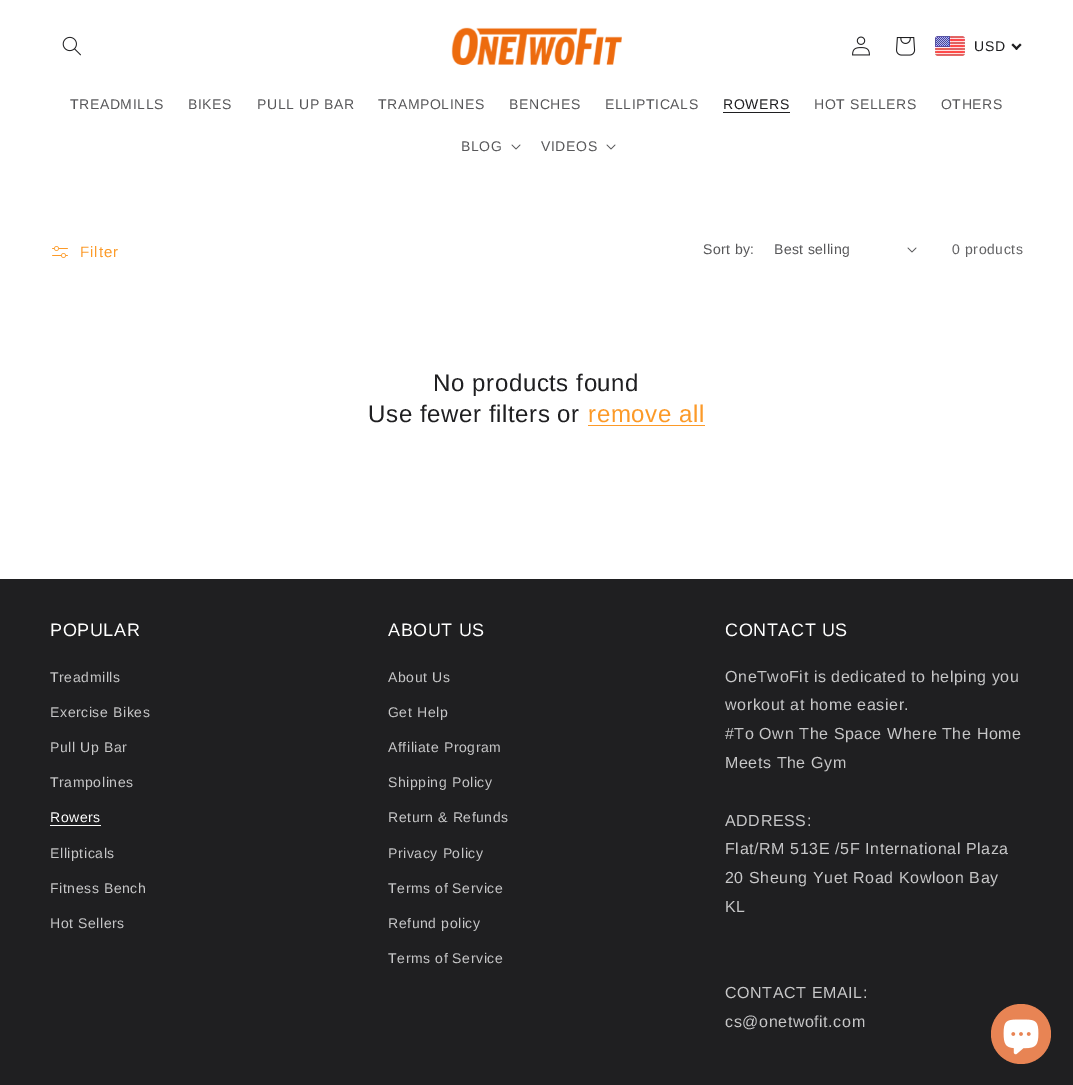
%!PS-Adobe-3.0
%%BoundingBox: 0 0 1073 1085
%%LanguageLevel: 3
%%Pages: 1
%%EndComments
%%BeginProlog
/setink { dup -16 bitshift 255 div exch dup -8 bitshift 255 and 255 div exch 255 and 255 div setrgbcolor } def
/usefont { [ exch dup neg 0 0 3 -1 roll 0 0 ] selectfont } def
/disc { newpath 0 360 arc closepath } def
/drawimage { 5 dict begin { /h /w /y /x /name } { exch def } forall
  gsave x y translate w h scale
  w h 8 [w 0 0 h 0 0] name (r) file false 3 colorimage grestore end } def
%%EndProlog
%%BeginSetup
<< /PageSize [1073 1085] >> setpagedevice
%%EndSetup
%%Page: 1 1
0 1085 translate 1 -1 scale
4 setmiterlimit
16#FFFFFF setink
0 0 1073 1085 rectfill
(img1.raw) 62 36 19 20 drawimage
(img2.raw) 451 27 171 38 drawimage
(img3.raw) 852 36 18 20 drawimage
(img4.raw) 896 37 20 19 drawimage
(img5.raw) 935 36 30 20 drawimage
/LiberationSans-Regular 14 usefont
16#1F1F21 setink
974 51 moveto 0.6 0 (USD) ashow
1020 43.5 moveto 1021.5 45 lineto 1016.5 50 lineto 1015 48.5 lineto closepath fill
1013 43.5 moveto 1018 48.5 lineto 1016.5 50 lineto 1011.5 45 lineto closepath fill
16#575759 setink
70 109 moveto 0.6 0 (TREADMILLS) ashow
188 109 moveto 0.6 0 (BIKES) ashow
257 109 moveto 0.6 0 (PULL UP BAR) ashow
378 109 moveto 0.6 0 (TRAMPOLINES) ashow
509 109 moveto 0.6 0 (BENCHES) ashow
605 109 moveto 0.6 0 (ELLIPTICALS) ashow
16#1F1F21 setink
723 109 moveto 0.6 0 (ROWERS) ashow
723 112 67 1 rectfill
16#575759 setink
814 109 moveto 0.6 0 (HOT SELLERS) ashow
941 109 moveto 0.6 0 (OTHERS) ashow
461 151 moveto 0.6 0 (BLOG) ashow
(img6.raw) 511 144 10 6 drawimage
541 151 moveto 0.6 0 (VIDEOS) ashow
(img6.raw) 606 144 10 6 drawimage
(img7.raw) 52 246 16 12 drawimage
/LiberationSans-Regular 15 usefont
16#FC9A28 setink
80 257 moveto 1 0 (Filter) ashow
/LiberationSans-Regular 14 usefont
16#575759 setink
703 254 moveto 0.4 0 (Sort by:) ashow
774 254 moveto 0.4 0 (Best selling) ashow
(img6.raw) 907 247 10 6 drawimage
16#626264 setink
952 254 moveto 0.6 0 (0 products) ashow
/LiberationSans-Regular 24 usefont
16#1F1F21 setink
433 391 moveto 0.6 0 (No products found) ashow
368 422 moveto 0.6 0 (Use fewer filters or) ashow
16#FC9A28 setink
588 422 moveto 0.6 0 (remove all) ashow
588 425 117 1 rectfill
16#1F1F21 setink
0 579 1073 506 rectfill
/LiberationSans-Regular 18 usefont
16#FFFFFF setink
50 636 moveto 0.6 0 (POPULAR) ashow
/LiberationSans-Regular 14 usefont
16#C7C7C8 setink
50 682 moveto 0.6 0 (Treadmills) ashow
50 717 moveto 0.6 0 (Exercise Bikes) ashow
50 752 moveto 0.6 0 (Pull Up Bar) ashow
50 787 moveto 0.6 0 (Trampolines) ashow
16#FFFFFF setink
50 822 moveto 0.6 0 (Rowers) ashow
50 825 51 1 rectfill
16#C7C7C8 setink
50 858 moveto 0.6 0 (Ellipticals) ashow
50 893 moveto 0.6 0 (Fitness Bench) ashow
50 928 moveto 0.6 0 (Hot Sellers) ashow
/LiberationSans-Regular 18 usefont
16#FFFFFF setink
388 636 moveto 0.6 0 (ABOUT US) ashow
/LiberationSans-Regular 14 usefont
16#C7C7C8 setink
388 682 moveto 0.6 0 (About Us) ashow
388 717 moveto 0.6 0 (Get Help) ashow
388 752 moveto 0.6 0 (Affiliate Program) ashow
388 787 moveto 0.6 0 (Shipping Policy) ashow
388 822 moveto 0.6 0 (Return & Refunds) ashow
388 858 moveto 0.6 0 (Privacy Policy) ashow
388 893 moveto 0.6 0 (Terms of Service) ashow
388 928 moveto 0.6 0 (Refund policy) ashow
388 963 moveto 0.6 0 (Terms of Service) ashow
/LiberationSans-Regular 18 usefont
16#FFFFFF setink
725 636 moveto 0.6 0 (CONTACT US) ashow
/LiberationSans-Regular 16 usefont
16#C7C7C8 setink
725 682 moveto 0.6 0 (OneTwoFit is dedicated to helping you) ashow
725 710 moveto 0.6 0 (workout at home easier.) ashow
725 739 moveto 0.6 0 (#To Own The Space Where The Home) ashow
725 768 moveto 0.6 0 (Meets The Gym) ashow
725 826 moveto 0.6 0 (ADDRESS:) ashow
725 854 moveto 0.6 0 (Flat/RM 513E /5F International Plaza) ashow
725 883 moveto 0.6 0 (20 Sheung Yuet Road Kowloon Bay) ashow
725 912 moveto 0.6 0 (KL) ashow
725 998 moveto 0.6 0 (CONTACT EMAIL:) ashow
725 1027 moveto 0.6 0 (cs@onetwofit.com) ashow
16#E88454 setink
1021 1034 30 disc fill
(img8.raw) 1003 1019 36 36 drawimage
showpage
%%EOF
